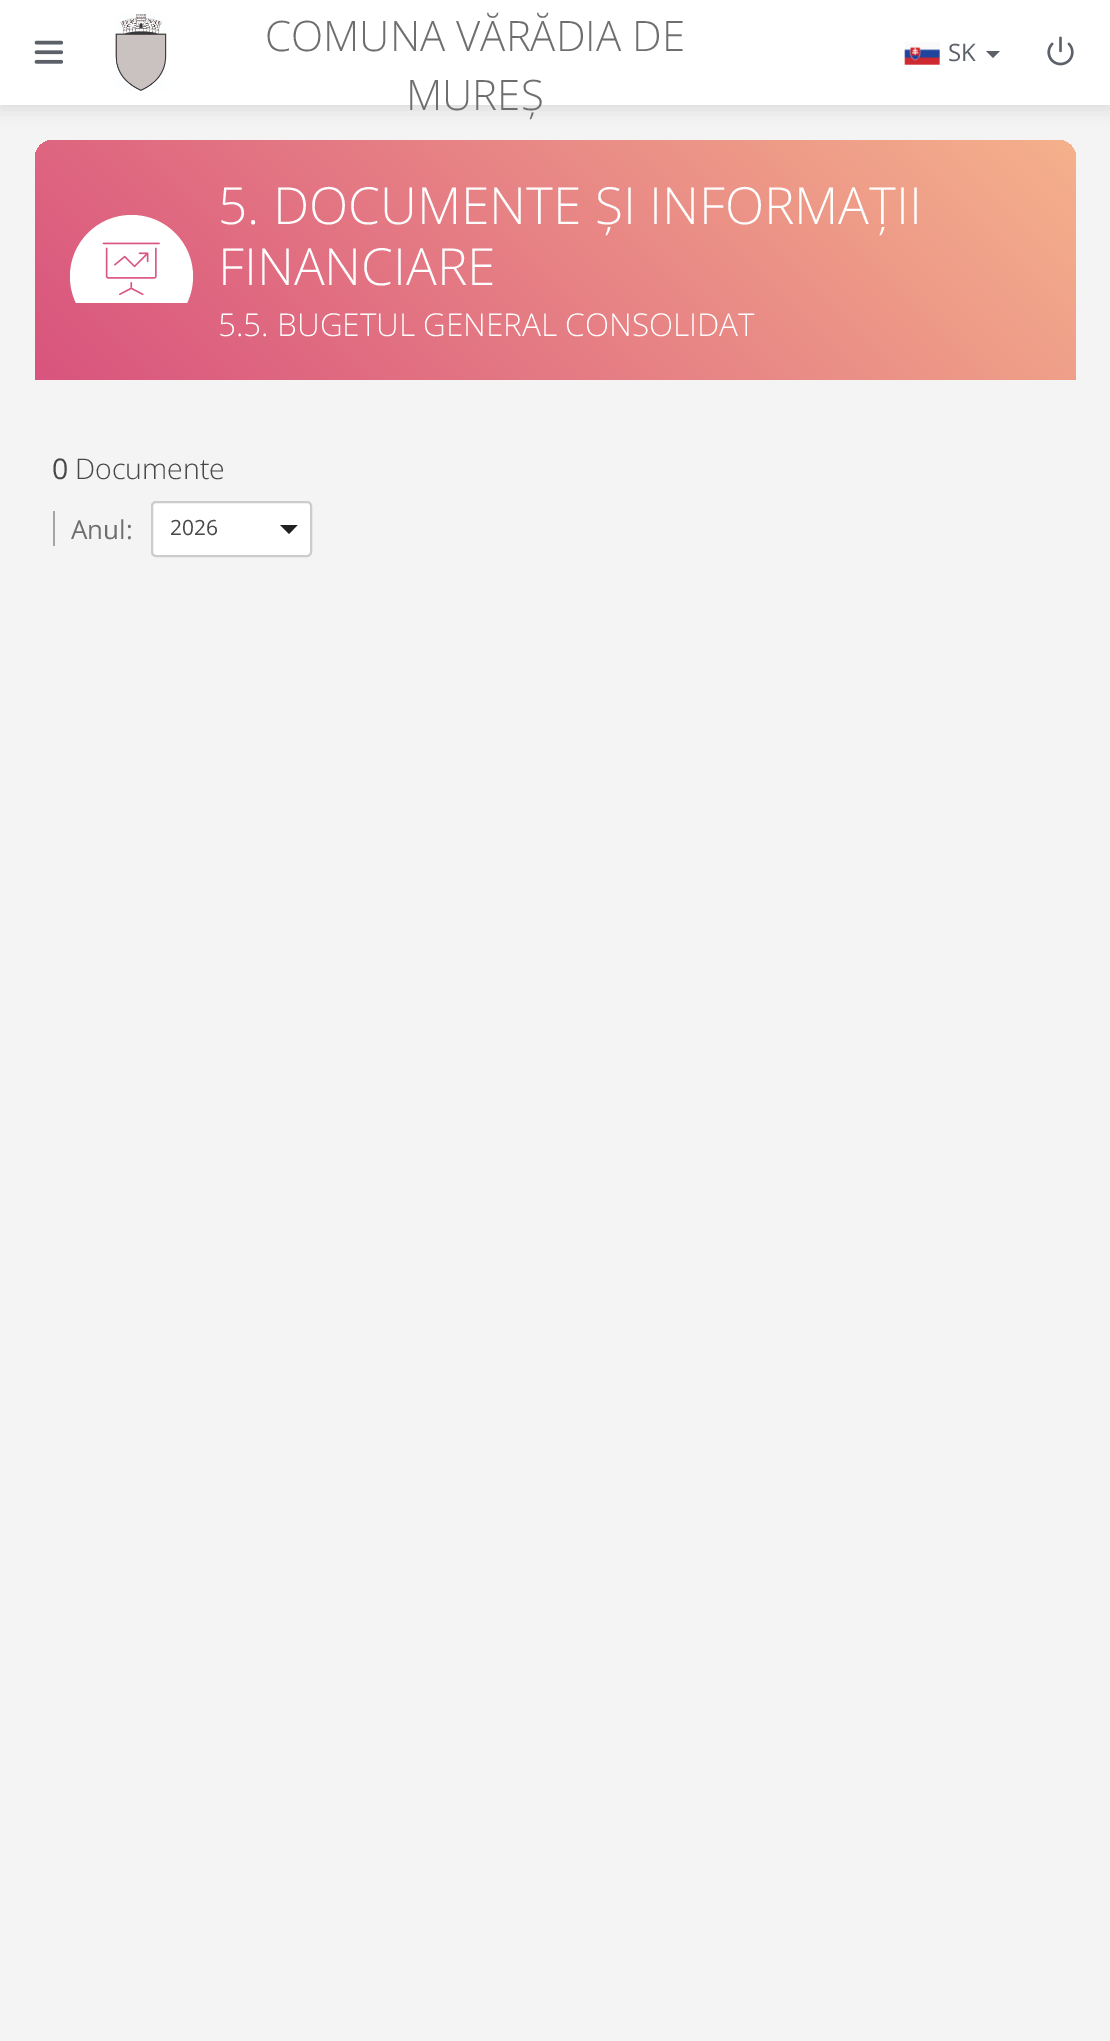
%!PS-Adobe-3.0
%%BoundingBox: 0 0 1110 2041
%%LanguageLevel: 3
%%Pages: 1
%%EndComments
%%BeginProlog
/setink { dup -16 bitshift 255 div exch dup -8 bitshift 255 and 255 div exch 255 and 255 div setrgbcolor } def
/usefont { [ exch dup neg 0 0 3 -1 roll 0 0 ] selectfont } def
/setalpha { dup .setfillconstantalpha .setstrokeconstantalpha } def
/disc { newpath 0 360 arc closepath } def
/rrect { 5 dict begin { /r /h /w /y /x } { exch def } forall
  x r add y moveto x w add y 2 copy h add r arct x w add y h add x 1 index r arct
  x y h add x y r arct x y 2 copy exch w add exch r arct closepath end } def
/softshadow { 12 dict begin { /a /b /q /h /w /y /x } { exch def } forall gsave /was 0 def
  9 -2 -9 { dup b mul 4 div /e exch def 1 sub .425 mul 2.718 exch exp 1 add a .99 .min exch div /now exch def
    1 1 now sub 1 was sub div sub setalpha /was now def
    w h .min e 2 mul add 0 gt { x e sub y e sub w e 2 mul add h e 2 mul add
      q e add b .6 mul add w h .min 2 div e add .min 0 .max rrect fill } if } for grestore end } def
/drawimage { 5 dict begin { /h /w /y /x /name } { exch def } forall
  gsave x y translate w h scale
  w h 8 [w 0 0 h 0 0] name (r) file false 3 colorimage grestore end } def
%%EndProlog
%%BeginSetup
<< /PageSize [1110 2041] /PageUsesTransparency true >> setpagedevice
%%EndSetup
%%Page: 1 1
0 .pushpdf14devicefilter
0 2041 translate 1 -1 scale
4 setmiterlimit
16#F4F4F4 setink
0 0 1110 2041 rectfill
16#000000 setink
0 4 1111 105 0 9 0.1 softshadow
16#FFFFFF setink
0 0 1110 105 rectfill
(img1.raw) 34 40 30 24 drawimage
(img2.raw) 115 14 52 77 drawimage
/OpenSans-Light 42 usefont
16#6E6E6E setink
265 51 moveto (COMUNA VĂRĂDIA DE) show
406 110 moveto (MUREȘ) show
(img3.raw) 904 42 36 23 drawimage
/OpenSans-Regular 24 usefont
16#5C6169 setink
948 61 moveto (SK) show
986 51 moveto 1000 51 lineto 993 58 lineto closepath fill
(img4.raw) 1047 36 27 30 drawimage
gsave 53 140 moveto 1058 140 lineto 1068 140 1076 148 1076 158 curveto 1076 380 lineto 35 380 lineto 35 158 lineto 35 148 43 140 53 140 curveto closepath clip newpath
<< /ShadingType 2 /ColorSpace /DeviceRGB /Coords [235 580 876 -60] /Extend [true true] /Function << /FunctionType 2 /Domain [0 1] /C0 [0.851 0.329 0.494] /C1 [0.961 0.694 0.549] /N 1 >> >> shfill grestore
gsave
70 215 123 88 rectclip
16#FFFFFF setink
131.5 276.5 61.5 disc fill
grestore
(img5.raw) 102 242 58 54 drawimage
/OpenSans-Light 51.25 usefont
16#FFFFFF setink
218 224 moveto (5. DOCUMENTE ȘI INFORMAȚII) show
218 285 moveto (FINANCIARE) show
/OpenSans-Light 31.5 usefont
218 336 moveto (5.5. BUGETUL GENERAL CONSOLIDAT) show
/OpenSans-Regular 28.5 usefont
16#484848 setink
52 479 moveto (0) show
/OpenSans-Light 28.5 usefont
75 479 moveto (Documente) show
16#A5A5A5 setink
53 511 2 35 rectfill
/OpenSans-Regular 26 usefont
16#6E6E6E setink
71 539 moveto (Anul:) show
16#FFFFFF setink
152 502 159 54 4 rrect gsave fill grestore
16#CCCCCC setink
2 setlinewidth
stroke
/OpenSans-Regular 21 usefont
16#484848 setink
170 535 moveto (2026) show
16#212121 setink
280 525 moveto 289 534 lineto 297.5 525 lineto closepath fill
.poppdf14devicefilter showpage
%%EOF
